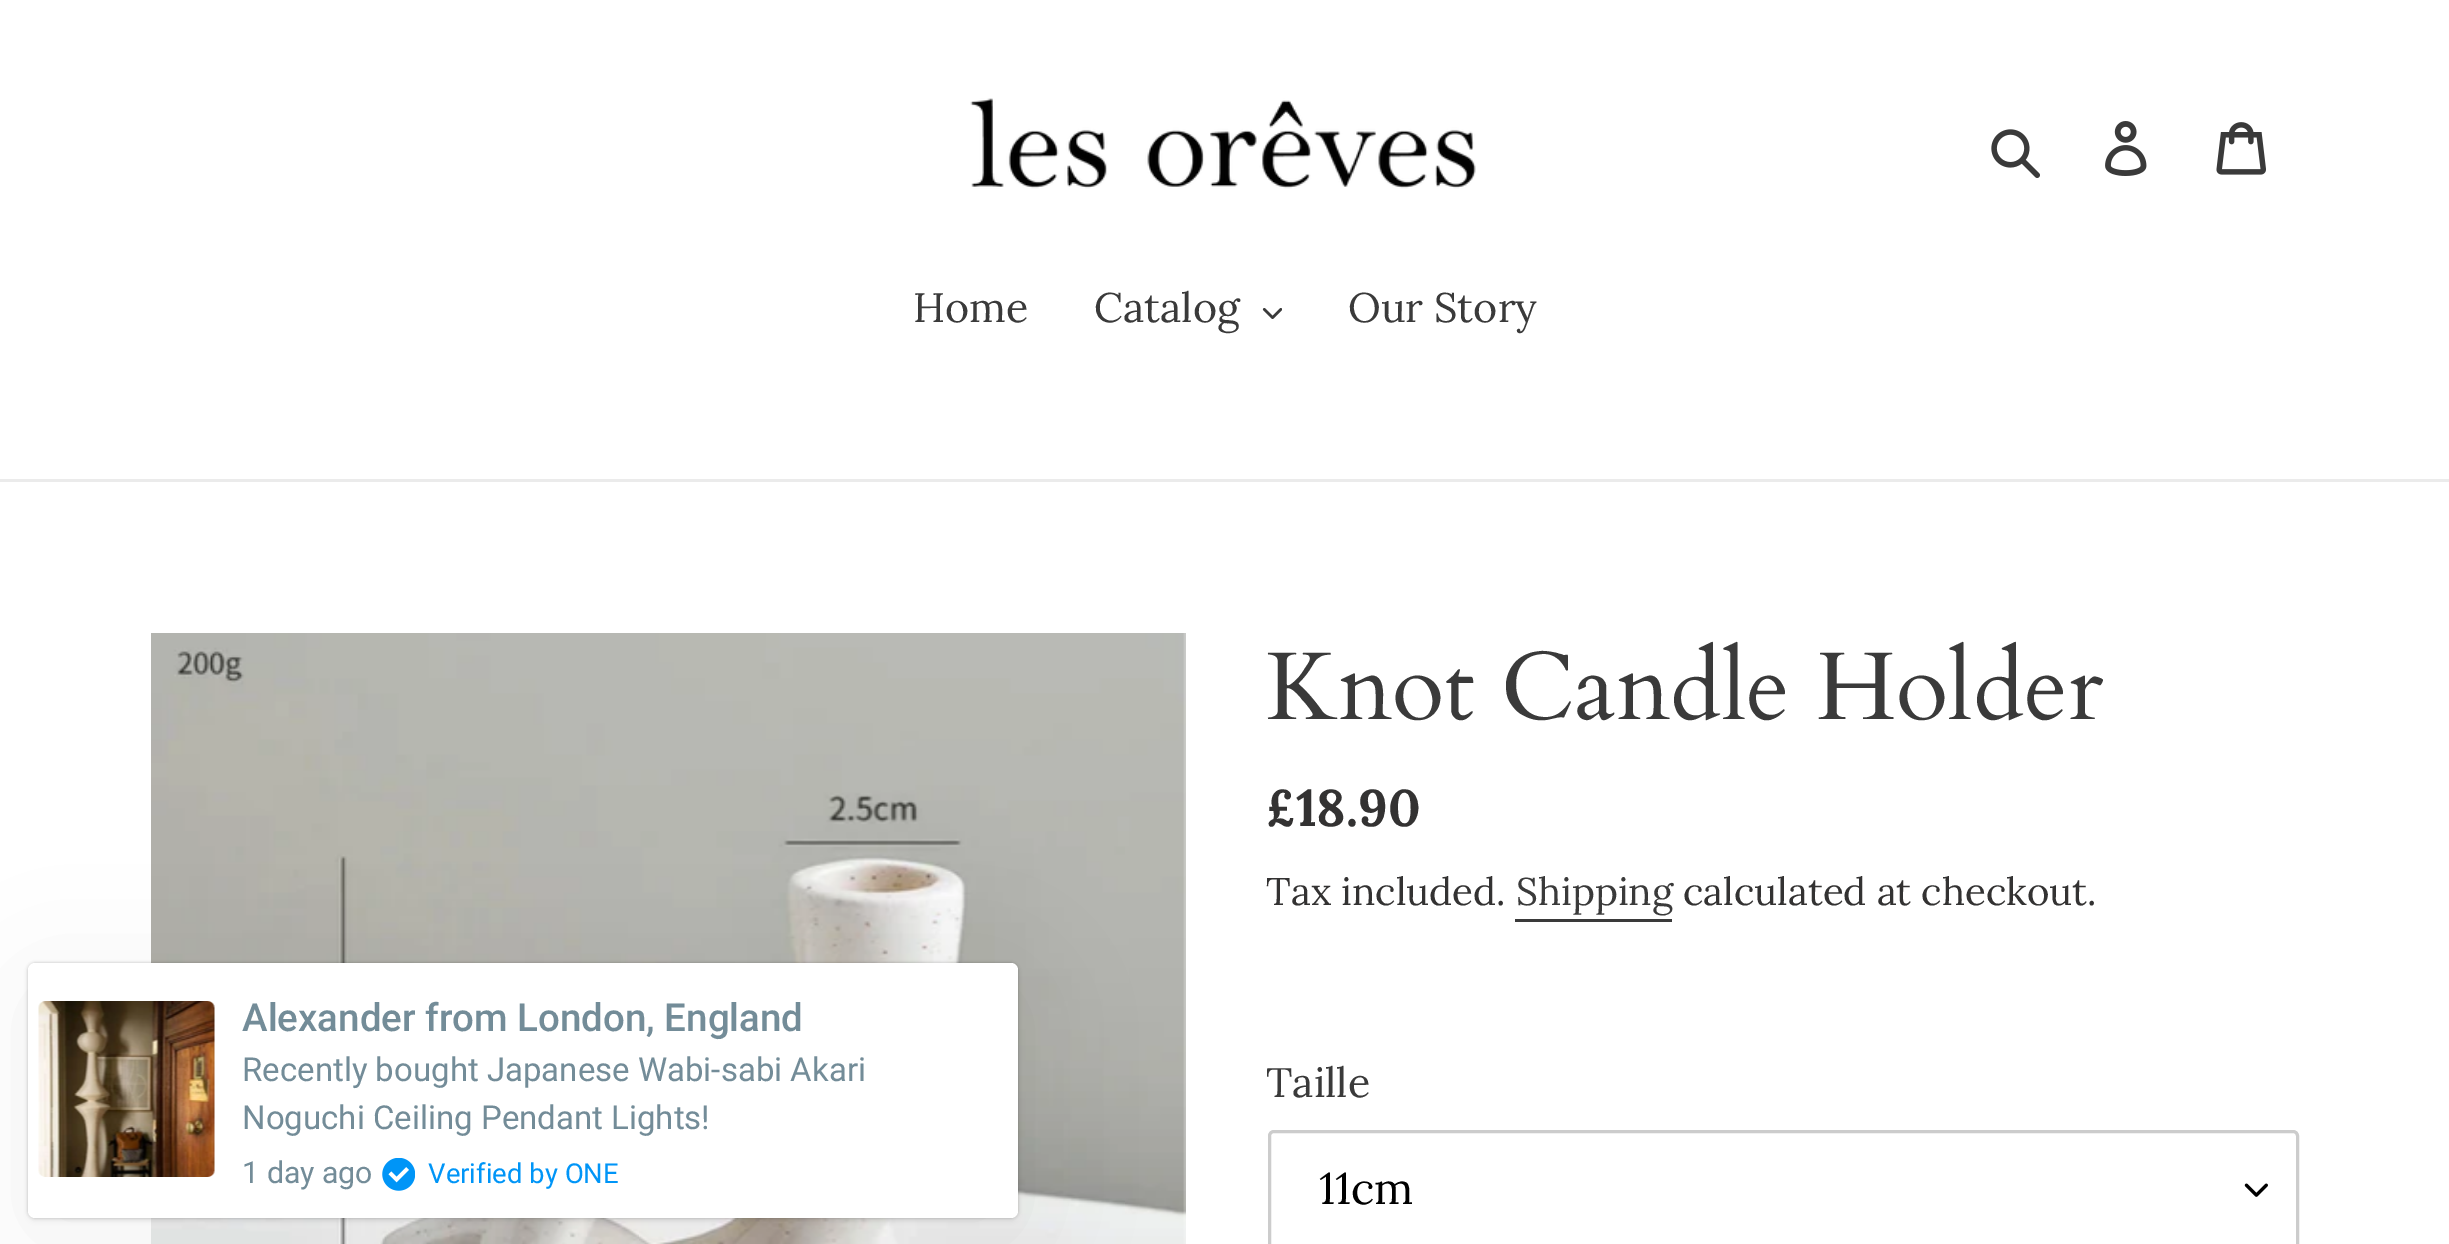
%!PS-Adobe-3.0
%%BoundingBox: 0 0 2449 1244
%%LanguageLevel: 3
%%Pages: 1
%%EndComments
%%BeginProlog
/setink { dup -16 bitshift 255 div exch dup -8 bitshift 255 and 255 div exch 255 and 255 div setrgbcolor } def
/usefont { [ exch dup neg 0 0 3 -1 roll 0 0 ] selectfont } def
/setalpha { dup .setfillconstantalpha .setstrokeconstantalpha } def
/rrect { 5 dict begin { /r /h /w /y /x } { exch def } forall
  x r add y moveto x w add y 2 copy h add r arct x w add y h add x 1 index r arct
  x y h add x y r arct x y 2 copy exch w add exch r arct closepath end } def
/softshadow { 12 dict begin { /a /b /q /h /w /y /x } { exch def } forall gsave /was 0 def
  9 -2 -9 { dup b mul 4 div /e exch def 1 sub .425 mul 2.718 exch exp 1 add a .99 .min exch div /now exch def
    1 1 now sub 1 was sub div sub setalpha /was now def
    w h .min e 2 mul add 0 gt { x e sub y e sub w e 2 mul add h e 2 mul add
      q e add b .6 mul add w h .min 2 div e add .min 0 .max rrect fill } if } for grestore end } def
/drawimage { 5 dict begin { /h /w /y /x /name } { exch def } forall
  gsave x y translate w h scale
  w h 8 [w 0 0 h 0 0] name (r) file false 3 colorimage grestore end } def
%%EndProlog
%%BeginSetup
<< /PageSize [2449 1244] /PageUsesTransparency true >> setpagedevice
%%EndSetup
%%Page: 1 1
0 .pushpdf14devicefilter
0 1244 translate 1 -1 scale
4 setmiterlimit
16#FFFFFF setink
0 0 2449 1244 rectfill
(img1.raw) 970 98 506 91 drawimage
(img2.raw) 1991 129 49 49 drawimage
(img3.raw) 2105 121 42 55 drawimage
(img4.raw) 2216 122 50 53 drawimage
16#EBEBEB setink
0 479 2449 3 rectfill
/Lora-Regular 41.25 usefont
16#3A3A3A setink
913 322 moveto (Home) show
1094 322 moveto (Catalog) show
(img5.raw) 1262 308 20 11 drawimage
1348 322 moveto (Our Story) show
(img8.raw) 151 633 1035 611 drawimage
16#000000 setink
28 985 990 255 7 69 0.05 softshadow
28 965 990 256 7 3 0.05 softshadow
28 963 990 255 7 1.5 0.2 softshadow
16#FFFFFF setink
28 963 990 255 7 rrect fill
(img6.raw) 38 1001 177 176 drawimage
/Roboto-Medium 38.5 usefont
16#738C98 setink
242 1031 moveto (Alexander from London, England) show
/Roboto-Regular 33 usefont
242 1081 moveto (Recently bought Japanese Wabi-sabi Akari) show
242 1129 moveto (Noguchi Ceiling Pendant Lights!) show
/Roboto-Regular 30.25 usefont
242 1183 moveto (1 day ago) show
(img7.raw) 382 1158 33 33 drawimage
/Roboto-Regular 27.5 usefont
16#0095F7 setink
428 1183 moveto (Verified by ONE) show
/Cardo-Regular 96.25 usefont
16#3A3A3A setink
1266 719 moveto (Knot Candle Holder) show
/Lora-Bold 51.5 usefont
16#333232 setink
1266 826 moveto (£18.90) show
/Lora-Regular 38.5 usefont
1266 905 moveto (Tax included.) show
16#3A3A3A setink
1516 905 moveto (Shipping) show
1515 919 157 3 rectfill
16#333232 setink
1683 905 moveto (calculated at checkout.) show
/Lora-Regular 41.25 usefont
16#3A3A3A setink
1266 1097 moveto (Taille) show
(img9.raw) 2244 1183 24 14 drawimage
16#CCCCCC setink
3 setlinewidth
1269.5 1131.5 1028 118 4.5 rrect stroke
/Lora-Regular 44 usefont
16#000000 setink
1319 1204 moveto (11cm) show
.poppdf14devicefilter showpage
%%EOF
